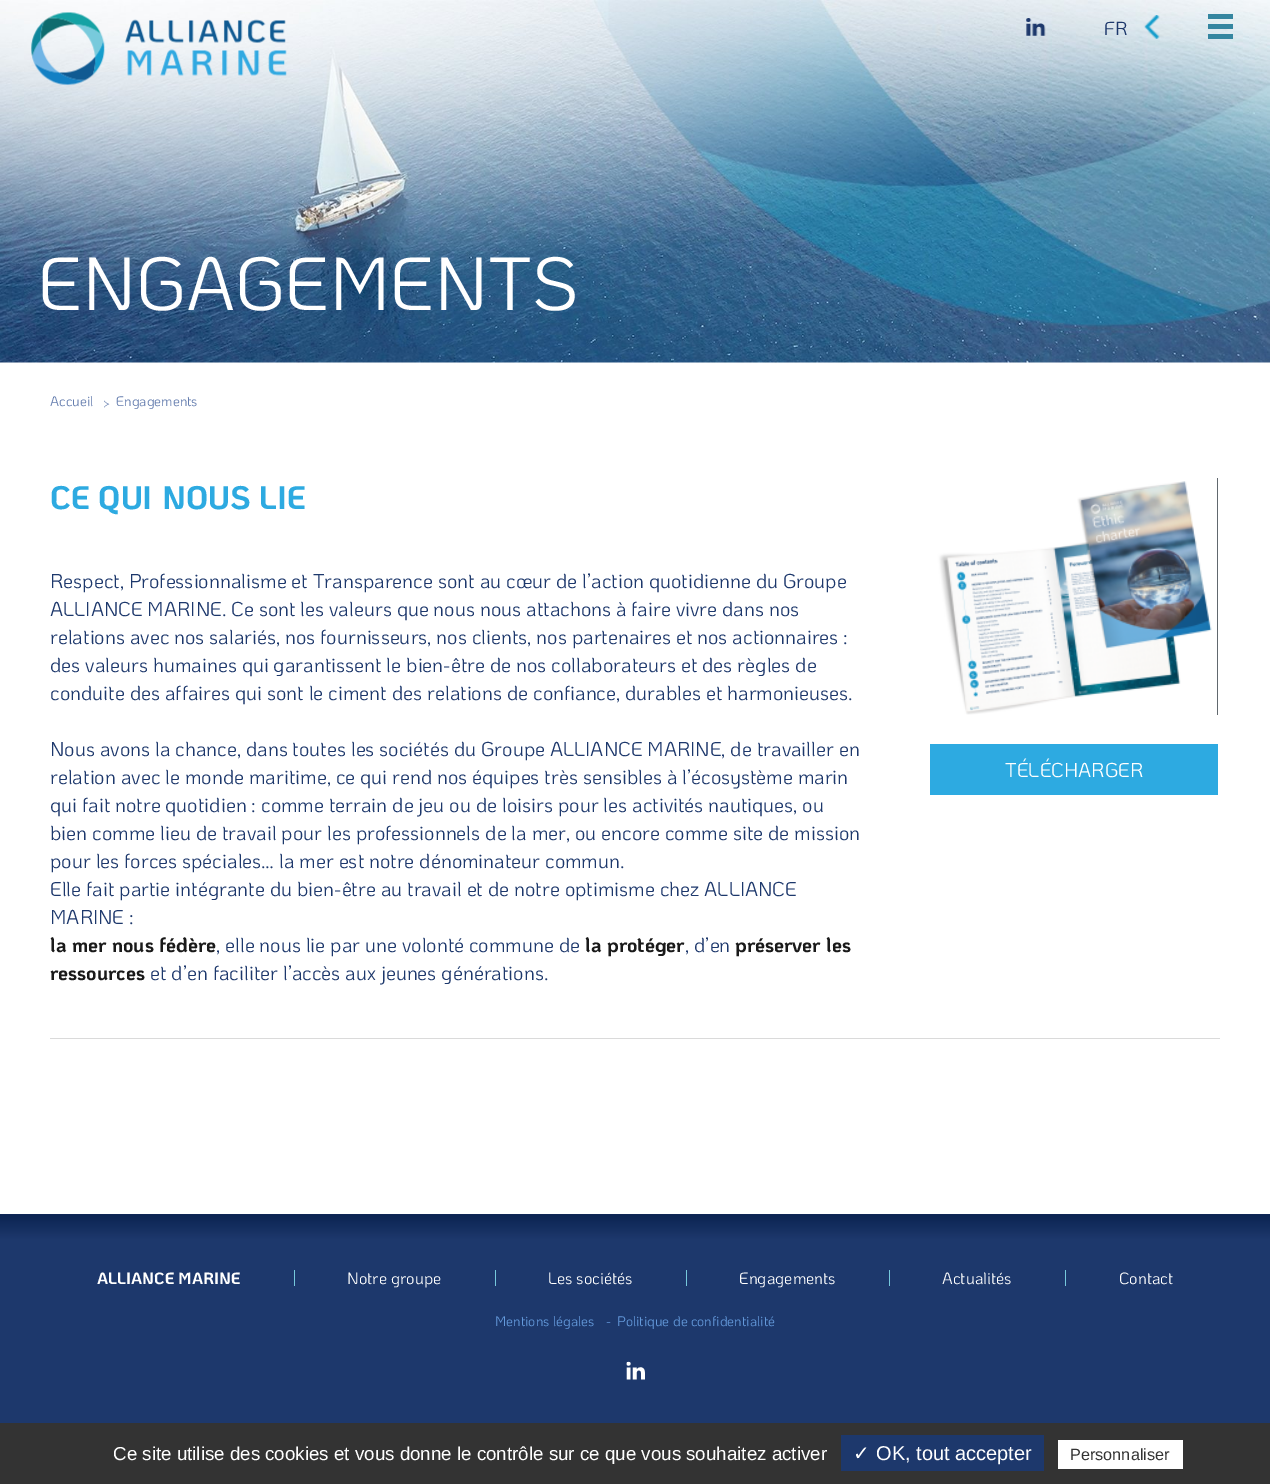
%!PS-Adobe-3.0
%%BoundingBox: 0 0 1270 1484
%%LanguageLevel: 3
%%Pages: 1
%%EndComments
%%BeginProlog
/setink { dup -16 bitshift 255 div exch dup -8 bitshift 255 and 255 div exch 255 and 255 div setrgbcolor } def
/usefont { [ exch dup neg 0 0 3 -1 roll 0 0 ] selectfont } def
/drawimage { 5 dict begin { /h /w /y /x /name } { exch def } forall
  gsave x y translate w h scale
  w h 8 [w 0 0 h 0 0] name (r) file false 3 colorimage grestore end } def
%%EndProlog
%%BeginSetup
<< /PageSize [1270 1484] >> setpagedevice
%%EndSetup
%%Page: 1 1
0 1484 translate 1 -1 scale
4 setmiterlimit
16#FFFFFF setink
0 0 1270 1484 rectfill
(img4.raw) 0 0 1270 363 drawimage
(img1.raw) 31 12 256 74 drawimage
(img2.raw) 1026 18 20 18 drawimage
/KoHo-Regular 18.75 usefont
16#1D386C setink
1104 35 moveto (FR) show
(img3.raw) 1144 15 16 24 drawimage
[
    [1208 14 25 5 16#3586A0]
    [1208 24 25 5 16#3586A0]
    [1208 34 25 5 16#3586A0]
] { aload pop setink rectfill } forall
/KoHo-Regular 75 usefont
16#FFFFFF setink
38 310 moveto (ENGAGEMENTS) show
/KoHo-Regular 13.75 usefont
16#637CAE setink
[
    [(Accueil) 50 406]
    [(>) 103 408]
    [(Engagements) 116 406]
] { aload pop moveto show } forall
16#DADADA setink
50 1038 1170 1 rectfill
/KoHo-Bold 32.5 usefont
16#2DAAE1 setink
50 509 moveto (CE QUI NOUS LIE) show
/KoHo-Regular 20 usefont
16#1D386C setink
[
    [(Respect, Professionnalisme et Transparence sont au cœur de l’action quotidienne du Groupe) 50 588]
    [(ALLIANCE MARINE. Ce sont les valeurs que nous nous attachons à faire vivre dans nos) 50 616]
    [(relations avec nos salariés, nos fournisseurs, nos clients, nos partenaires et nos actionnaires :) 50 644]
    [(des valeurs humaines qui garantissent le bien-être de nos collaborateurs et des règles de) 50 672]
    [(conduite des affaires qui sont le ciment des relations de confiance, durables et harmonieuses.) 50 700]
    [(Nous avons la chance, dans toutes les sociétés du Groupe ALLIANCE MARINE, de travailler en) 50 756]
    [(relation avec le monde maritime, ce qui rend nos équipes très sensibles à l’écosystème marin) 50 784]
    [(qui fait notre quotidien : comme terrain de jeu ou de loisirs pour les activités nautiques, ou) 50 812]
    [(bien comme lieu de travail pour les professionnels de la mer, ou encore comme site de mission) 50 840]
    [(pour les forces spéciales… la mer est notre dénominateur commun.) 50 868]
    [(Elle fait partie intégrante du bien-être au travail et de notre optimisme chez ALLIANCE) 50 896]
    [(MARINE :) 50 924]
] { aload pop moveto show } forall
/KoHo-Bold 20 usefont
16#1A1A1A setink
50 952 moveto (la mer nous fédère) show
/KoHo-Regular 20 usefont
16#1D386C setink
216 952 moveto (, elle nous lie par une volonté commune de) show
/KoHo-Bold 20 usefont
16#1A1A1A setink
585 952 moveto (la protéger) show
/KoHo-Regular 20 usefont
16#1D386C setink
685 952 moveto (, d’en) show
/KoHo-Bold 20 usefont
16#1A1A1A setink
735 952 moveto (préserver les) show
50 980 moveto (ressources) show
/KoHo-Regular 20 usefont
16#1D386C setink
150 980 moveto (et d’en faciliter l’accès aux jeunes générations.) show
16#2C353D setink
1217 478 1 237 rectfill
(img5.raw) 930 478 288 237 drawimage
16#2DAAE1 setink
930 744 288 51 rectfill
16#FFFFFF setink
1005 777 moveto (TÉLÉCHARGER) show
gsave 0 1215 moveto 1270 1215 lineto 1270 1423 lineto 0 1423 lineto closepath clip newpath
<< /ShadingType 2 /ColorSpace /DeviceRGB /Coords [635 1215 635 1433] /Extend [true true] /Function << /FunctionType 3 /Domain [0 1] /Functions [<< /FunctionType 2 /Domain [0 1] /C0 [0.047 0.141 0.322] /C1 [0.114 0.22 0.424] /N 1 >> << /FunctionType 2 /Domain [0 1] /C0 [0.114 0.22 0.424] /C1 [0.114 0.22 0.424] /N 1 >>] /Bounds [0.11] /Encode [0 1 0 1] >> >> shfill grestore
16#0F2756 setink
0 1214 1270 1 rectfill
/KoHo-Bold 16.25 usefont
16#FFFFFF setink
97 1284 moveto (ALLIANCE MARINE) show
16#76C9DC setink
294 1270 1 16 rectfill
/KoHo-Regular 16.25 usefont
16#FFFFFF setink
347 1284 moveto (Notre groupe) show
16#76C9DC setink
495 1270 1 16 rectfill
16#FFFFFF setink
548 1284 moveto (Les sociétés) show
16#76C9DC setink
686 1270 1 16 rectfill
16#FFFFFF setink
739 1284 moveto (Engagements) show
16#76C9DC setink
889 1270 1 16 rectfill
16#FFFFFF setink
942 1284 moveto (Actualités) show
16#76C9DC setink
1065 1270 1 16 rectfill
16#FFFFFF setink
1119 1284 moveto (Contact) show
/KoHo-Regular 13.75 usefont
16#649ADC setink
[
    [(Mentions légales) 495 1326]
    [(-) 606 1326]
    [(Politique de confidentialité) 617 1326]
] { aload pop moveto show } forall
(img6.raw) 626 1361 19 19 drawimage
16#333333 setink
0 1423 1270 61 rectfill
/LiberationSans-Regular 18.75 usefont
16#FFFFFF setink
113 1460 moveto (Ce site utilise des cookies et vous donne le contrôle sur ce que vous souhaitez activer) show
16#1D386C setink
841 1435 203 36 rectfill
/DejaVuSans-Regular 20 usefont
16#FFFFFF setink
853 1460 moveto (✓) show
/LiberationSans-Regular 20 usefont
876 1460 moveto (OK, tout accepter) show
1058 1440 125 29 rectfill
/LiberationSans-Regular 16.25 usefont
16#333333 setink
1070 1460 moveto (Personnaliser) show
showpage
%%EOF
